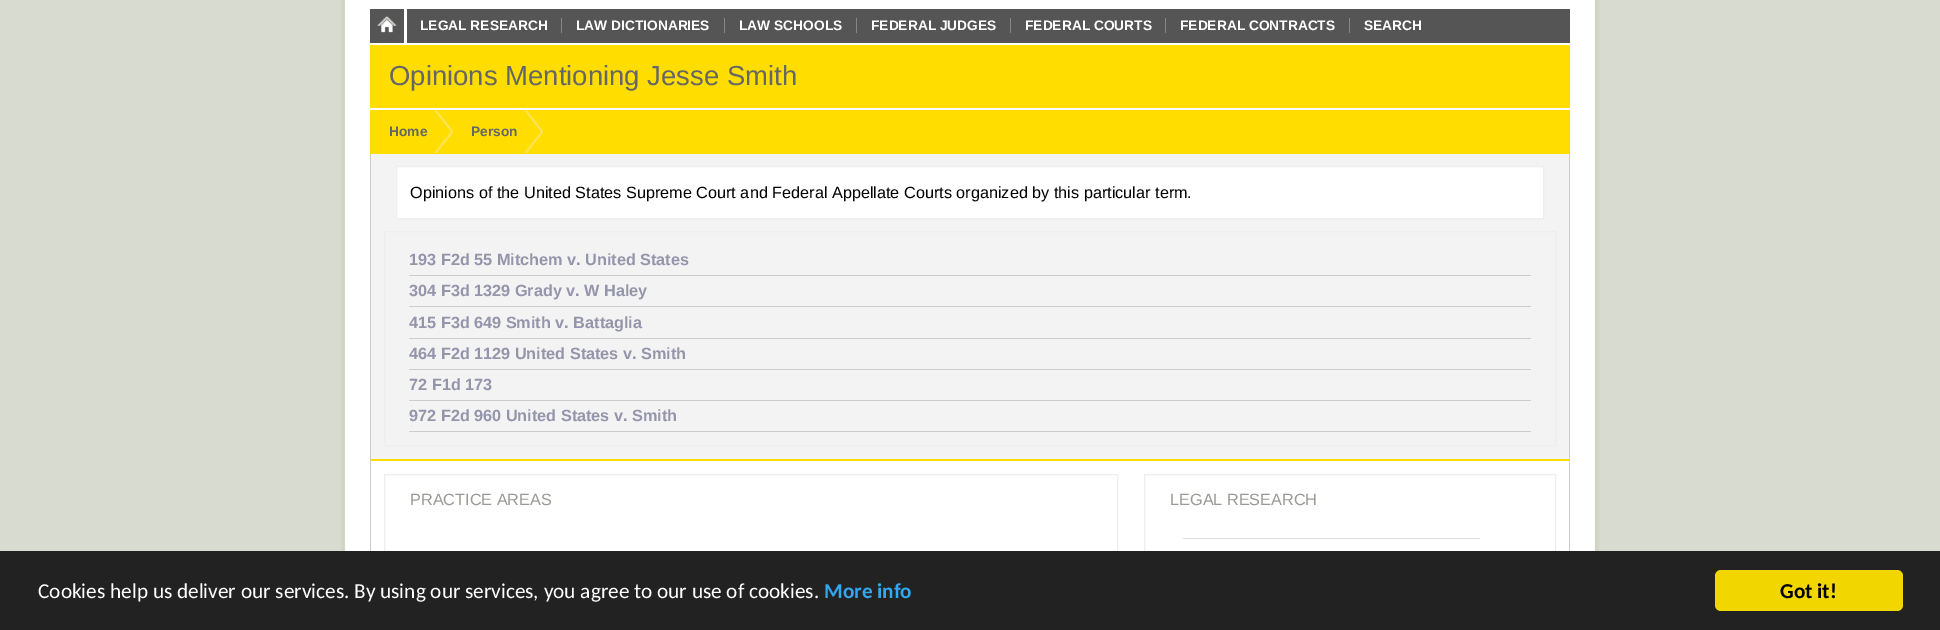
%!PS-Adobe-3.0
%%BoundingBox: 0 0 1940 630
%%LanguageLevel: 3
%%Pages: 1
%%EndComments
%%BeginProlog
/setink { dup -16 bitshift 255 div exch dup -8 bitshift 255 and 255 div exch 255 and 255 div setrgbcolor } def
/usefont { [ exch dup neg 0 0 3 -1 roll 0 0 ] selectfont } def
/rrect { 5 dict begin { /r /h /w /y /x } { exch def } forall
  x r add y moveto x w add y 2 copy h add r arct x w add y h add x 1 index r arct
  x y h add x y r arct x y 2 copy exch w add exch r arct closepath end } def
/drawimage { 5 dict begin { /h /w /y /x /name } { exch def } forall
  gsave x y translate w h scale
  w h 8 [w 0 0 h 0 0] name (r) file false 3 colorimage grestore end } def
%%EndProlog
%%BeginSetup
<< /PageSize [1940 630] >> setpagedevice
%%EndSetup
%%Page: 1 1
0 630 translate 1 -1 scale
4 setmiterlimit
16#D8DCD0 setink
0 0 1940 630 rectfill
(img1.raw) 340 0 1260 551 drawimage
16#555555 setink
370 9 1200 34 rectfill
(img2.raw) 377 15 20 18 drawimage
16#FFFFFF setink
404 9 3 34 rectfill
/LiberationSans-Bold 13.75 usefont
420 30 moveto (LEGAL RESEARCH) show
16#848884 setink
561 18 1 15 rectfill
16#FFFFFF setink
576 30 moveto (LAW DICTIONARIES) show
16#848884 setink
724 18 1 15 rectfill
16#FFFFFF setink
739 30 moveto (LAW SCHOOLS) show
16#848884 setink
856 18 1 15 rectfill
16#FFFFFF setink
871 30 moveto (FEDERAL JUDGES) show
16#848884 setink
1010 18 1 15 rectfill
16#FFFFFF setink
1025 30 moveto (FEDERAL COURTS) show
16#848884 setink
1165 18 1 15 rectfill
16#FFFFFF setink
1180 30 moveto (FEDERAL CONTRACTS) show
16#848884 setink
1349 18 1 15 rectfill
16#FFFFFF setink
1364 30 moveto (SEARCH) show
16#FFDD00 setink
370 45 1200 63 rectfill
/LiberationSans-Regular 27.5 usefont
16#666666 setink
389 85 moveto (Opinions Mentioning Jesse Smith) show
16#FFDD00 setink
370 110 1200 44 rectfill
(img3.raw) 434 109 19 45 drawimage
/LiberationSans-Bold 13.75 usefont
16#666666 setink
389 136 moveto (Home) show
(img4.raw) 525 109 18 45 drawimage
471 136 moveto (Person) show
[
    [371 154 1198 305 16#F3F3F3]
    [1569 154 1 305 16#CCCCCC]
    [370 154 1 305 16#CCCCCC]
] { aload pop setink rectfill } forall
16#FFFFFF setink
396.5 166.5 moveto 1543.5 166.5 lineto 1543.5 218.5 lineto 396.5 218.5 lineto closepath gsave fill grestore
16#EEEEEE setink
stroke
/LiberationSans-Regular 16.25 usefont
16#000000 setink
410 198 moveto (Opinions of the United States Supreme Court and Federal Appellate Courts organized by this particular term.) show
16#EEEEEE setink
384.5 231.5 1171 214 rectstroke
16#CCCCCC setink
409 275 1122 1 rectfill
/LiberationSans-Bold 16.25 usefont
16#9495AB setink
409 265 moveto (193 F2d 55 Mitchem v. United States) show
16#CCCCCC setink
409 306 1122 1 rectfill
16#9495AB setink
409 296 moveto (304 F3d 1329 Grady v. W Haley) show
16#CCCCCC setink
409 338 1122 1 rectfill
16#9495AB setink
409 328 moveto (415 F3d 649 Smith v. Battaglia) show
16#CCCCCC setink
409 369 1122 1 rectfill
16#9495AB setink
409 359 moveto (464 F2d 1129 United States v. Smith) show
16#CCCCCC setink
409 400 1122 1 rectfill
16#9495AB setink
409 390 moveto (72 F1d 173) show
16#CCCCCC setink
409 431 1122 1 rectfill
16#9495AB setink
409 421 moveto (972 F2d 960 United States v. Smith) show
16#FFDD00 setink
370 459 moveto 1570 459 lineto 1569 461 lineto 371 461 lineto closepath fill
16#CCCCCC setink
1570 459 moveto 1570 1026 lineto 1569 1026 lineto 1569 461 lineto closepath fill
370 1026 moveto 370 459 lineto 371 461 lineto 371 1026 lineto closepath fill
16#EEEEEE setink
384.5 474.5 733 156 rectstroke
/LiberationSans-Regular 16.25 usefont
16#989A94 setink
410 505 moveto (PRACTICE AREAS) show
16#EEEEEE setink
1144.5 474.5 411 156 rectstroke
16#989A94 setink
1170 505 moveto (LEGAL RESEARCH) show
16#DDDDDD setink
1183 538 297 1 rectfill
16#222222 setink
0 551 1940 79 rectfill
/Carlito-Regular 21.25 usefont
16#FFFFFF setink
38 598 moveto (Cookies help us deliver our services. By using our services, you agree to our use of cookies.) show
/Carlito-Bold 21.25 usefont
16#31A8F0 setink
824 598 moveto (More info) show
16#F1D600 setink
1715 570 188 41 6 rrect fill
16#000000 setink
1780 598 moveto (Got it!) show
showpage
%%EOF
